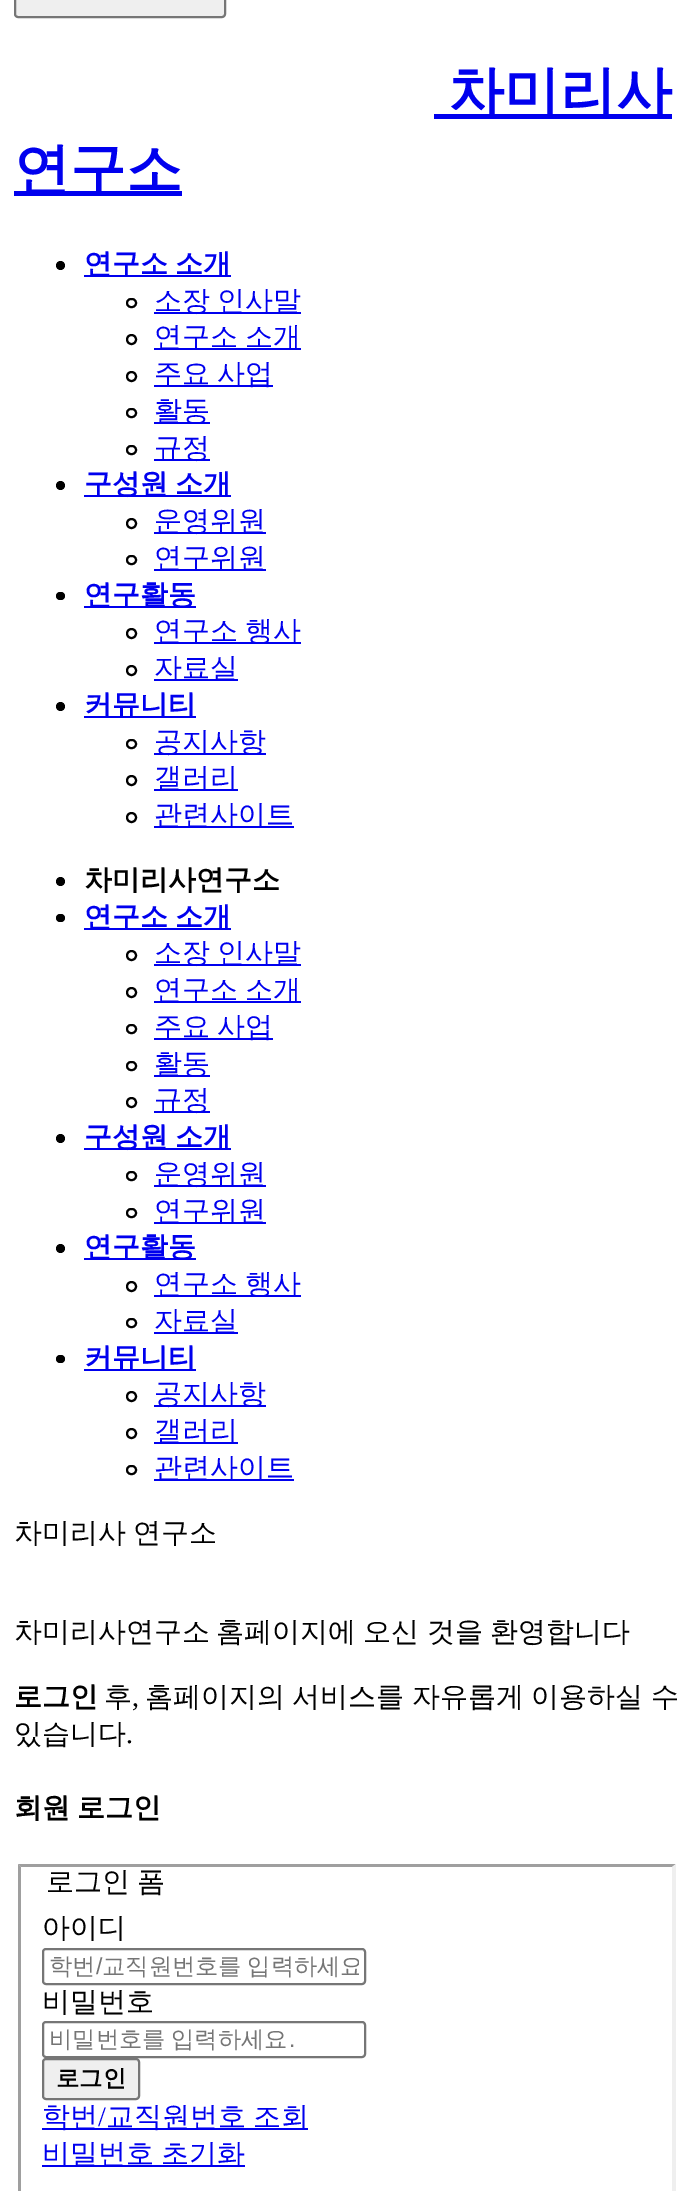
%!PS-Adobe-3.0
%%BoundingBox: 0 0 692 2191
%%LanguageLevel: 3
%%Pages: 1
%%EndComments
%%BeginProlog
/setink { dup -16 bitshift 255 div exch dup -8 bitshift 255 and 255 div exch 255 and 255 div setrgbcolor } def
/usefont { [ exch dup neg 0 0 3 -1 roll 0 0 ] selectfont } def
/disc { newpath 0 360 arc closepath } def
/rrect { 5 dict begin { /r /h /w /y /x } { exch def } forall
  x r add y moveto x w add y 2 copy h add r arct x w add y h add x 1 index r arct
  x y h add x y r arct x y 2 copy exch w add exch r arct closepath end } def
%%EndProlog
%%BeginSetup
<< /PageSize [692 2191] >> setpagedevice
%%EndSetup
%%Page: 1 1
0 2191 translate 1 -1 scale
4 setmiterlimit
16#FFFFFF setink
0 0 692 2191 rectfill
16#EFEFEF setink
15 -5 210 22 3 rrect gsave fill grestore
16#767676 setink
2 setlinewidth
stroke
16#0000EE setink
434 114 238 5 rectfill
/WenQuanYiZenHei-Bold 56 usefont
448 111 moveto (차미리사) show
14 191 168 5 rectfill
14 188 moveto (연구소) show
16#000000 setink
60.5 265.5 4.5 disc fill
16#0000EE setink
84 275 147 2 rectfill
/WenQuanYiZenHei-Bold 28 usefont
84 273 moveto -1 0 32 (연구소 소개) widthshow
16#000000 setink
127 299 9 8 4 rrect stroke
16#0000EE setink
154 312 147 2 rectfill
/WenQuanYiZenHei-Medium 28 usefont
154 310 moveto (소장) show
217 310 moveto (인사말) show
16#000000 setink
131.5 339.5 4.5 disc stroke
16#0000EE setink
154 348 147 2 rectfill
154 346 moveto -1 0 32 (연구소 소개) widthshow
16#000000 setink
131.5 376.5 4.5 disc stroke
16#0000EE setink
154 385 119 2 rectfill
154 383 moveto -1 0 32 (주요 사업) widthshow
16#000000 setink
127 409 9 8 4 rrect stroke
16#0000EE setink
154 422 56 2 rectfill
154 420 moveto (활동) show
16#000000 setink
127 446 9 8 4 rrect stroke
16#0000EE setink
154 459 56 2 rectfill
154 457 moveto (규정) show
16#000000 setink
60.5 485.5 4.5 disc fill
16#0000EE setink
84 495 147 2 rectfill
/WenQuanYiZenHei-Bold 28 usefont
84 493 moveto -1 0 32 (구성원 소개) widthshow
16#000000 setink
131.5 523.5 4.5 disc stroke
16#0000EE setink
154 532 112 2 rectfill
/WenQuanYiZenHei-Medium 28 usefont
154 530 moveto (운영위원) show
16#000000 setink
127 556 9 8 4 rrect stroke
16#0000EE setink
154 569 112 2 rectfill
154 567 moveto (연구위원) show
16#000000 setink
56 592 9 8 4 rrect fill
16#0000EE setink
84 606 112 2 rectfill
/WenQuanYiZenHei-Bold 28 usefont
84 604 moveto (연구활동) show
16#000000 setink
131.5 633.5 4.5 disc stroke
16#0000EE setink
154 642 147 2 rectfill
/WenQuanYiZenHei-Medium 28 usefont
154 640 moveto -1 0 32 (연구소 행사) widthshow
16#000000 setink
131.5 670.5 4.5 disc stroke
16#0000EE setink
154 679 84 2 rectfill
154 677 moveto (자료실) show
16#000000 setink
60.5 706.5 4.5 disc fill
16#0000EE setink
84 716 112 2 rectfill
/WenQuanYiZenHei-Bold 28 usefont
84 714 moveto (커뮤니티) show
16#000000 setink
127 740 9 8 4 rrect stroke
16#0000EE setink
154 753 112 2 rectfill
/WenQuanYiZenHei-Medium 28 usefont
154 751 moveto (공지사항) show
16#000000 setink
131.5 780.5 4.5 disc stroke
16#0000EE setink
154 789 84 2 rectfill
154 787 moveto (갤러리) show
16#000000 setink
131.5 817.5 4.5 disc stroke
16#0000EE setink
154 826 140 2 rectfill
154 824 moveto (관련사이트) show
16#000000 setink
60.5 881.5 4.5 disc fill
/WenQuanYiZenHei-Bold 28 usefont
84 889 moveto (차미리사연구소) show
56 914 9 8 4 rrect fill
16#0000EE setink
84 928 147 2 rectfill
84 926 moveto -1 0 32 (연구소 소개) widthshow
16#000000 setink
131.5 955.5 4.5 disc stroke
16#0000EE setink
154 964 147 2 rectfill
/WenQuanYiZenHei-Medium 28 usefont
154 962 moveto (소장) show
217 962 moveto (인사말) show
16#000000 setink
131.5 992.5 4.5 disc stroke
16#0000EE setink
154 1001 147 2 rectfill
154 999 moveto -1 0 32 (연구소 소개) widthshow
16#000000 setink
127 1025 9 8 4 rrect stroke
16#0000EE setink
154 1038 119 2 rectfill
154 1036 moveto -1 0 32 (주요 사업) widthshow
16#000000 setink
127 1062 9 8 4 rrect stroke
16#0000EE setink
154 1075 56 2 rectfill
154 1073 moveto (활동) show
16#000000 setink
131.5 1102.5 4.5 disc stroke
16#0000EE setink
154 1111 56 2 rectfill
154 1109 moveto (규정) show
16#000000 setink
60.5 1138.5 4.5 disc fill
16#0000EE setink
84 1148 147 2 rectfill
/WenQuanYiZenHei-Bold 28 usefont
84 1146 moveto -1 0 32 (구성원 소개) widthshow
16#000000 setink
127 1172 9 8 4 rrect stroke
16#0000EE setink
154 1185 112 2 rectfill
/WenQuanYiZenHei-Medium 28 usefont
154 1183 moveto (운영위원) show
16#000000 setink
127 1209 9 8 4 rrect stroke
16#0000EE setink
154 1222 112 2 rectfill
154 1220 moveto (연구위원) show
16#000000 setink
60.5 1248.5 4.5 disc fill
16#0000EE setink
84 1258 112 2 rectfill
/WenQuanYiZenHei-Bold 28 usefont
84 1256 moveto (연구활동) show
16#000000 setink
131.5 1286.5 4.5 disc stroke
16#0000EE setink
154 1295 147 2 rectfill
/WenQuanYiZenHei-Medium 28 usefont
154 1293 moveto -1 0 32 (연구소 행사) widthshow
16#000000 setink
127 1319 9 8 4 rrect stroke
16#0000EE setink
154 1332 84 2 rectfill
154 1330 moveto (자료실) show
16#000000 setink
56 1355 9 8 4 rrect fill
16#0000EE setink
84 1369 112 2 rectfill
/WenQuanYiZenHei-Bold 28 usefont
84 1367 moveto (커뮤니티) show
16#000000 setink
131.5 1396.5 4.5 disc stroke
16#0000EE setink
154 1405 112 2 rectfill
/WenQuanYiZenHei-Medium 28 usefont
154 1403 moveto (공지사항) show
16#000000 setink
131.5 1433.5 4.5 disc stroke
16#0000EE setink
154 1442 84 2 rectfill
154 1440 moveto (갤러리) show
16#000000 setink
127 1466 9 8 4 rrect stroke
16#0000EE setink
154 1479 140 2 rectfill
154 1477 moveto (관련사이트) show
16#000000 setink
14 1542 moveto -1 0 32 (차미리사 연구소) widthshow
14 1641 moveto (차미리사연구소) show
216 1641 moveto -1 0 32 (홈페이지에 오신 것을 환영합니다) widthshow
/WenQuanYiZenHei-Bold 28 usefont
14 1706 moveto (로그인) show
/WenQuanYiZenHei-Medium 28 usefont
104 1706 moveto (후) show
/LiberationSerif-Regular 28 usefont
132 1706 moveto (,) show
/WenQuanYiZenHei-Medium 28 usefont
145 1706 moveto -1 0 32 (홈페이지의 서비스를 자유롭게 이용하실 수) widthshow
14 1743 moveto (있습니다) show
/LiberationSerif-Regular 28 usefont
126 1743 moveto (.) show
/WenQuanYiZenHei-Bold 28 usefont
14 1817 moveto -1 0 32 (회원 로그인) widthshow
16#9F9F9F setink
18 1864 moveto 676 1864 lineto 672 1867 lineto 21 1867 lineto closepath fill
16#EFEFEF setink
676 1864 moveto 676 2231 lineto 672 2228 lineto 672 1867 lineto closepath fill
16#9F9F9F setink
18 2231 moveto 18 1864 lineto 21 1867 lineto 21 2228 lineto closepath fill
/WenQuanYiZenHei-Medium 28 usefont
16#000000 setink
46 1891 moveto -1 0 32 (로그인 폼) widthshow
42 1937 moveto (아이디) show
16#767676 setink
43 1949 322 35 3 rrect stroke
/WenQuanYiZenHei-Medium 23.25 usefont
16#757575 setink
49 1974 moveto (학번) show
/LiberationSans-Regular 23.25 usefont
96 1974 moveto (/) show
gsave
49 1951 310 30 rectclip
/WenQuanYiZenHei-Medium 23.25 usefont
102 1974 moveto -1 0 32 (교직원번호를 입력하세요) widthshow
grestore
/WenQuanYiZenHei-Medium 28 usefont
16#000000 setink
42 2011 moveto (비밀번호) show
16#767676 setink
43 2022 322 35 3 rrect stroke
/WenQuanYiZenHei-Medium 23.25 usefont
16#757575 setink
49 2047 moveto -1 0 32 (비밀번호를 입력하세요) widthshow
/LiberationSans-Regular 23.25 usefont
289 2047 moveto (.) show
16#EFEFEF setink
43 2059 96 40 3 rrect gsave fill grestore
16#767676 setink
stroke
/WenQuanYiZenHei-Bold 23.25 usefont
16#000000 setink
56 2086 moveto (로그인) show
16#0000EE setink
42 2128 266 2 rectfill
/WenQuanYiZenHei-Medium 28 usefont
42 2126 moveto (학번) show
/LiberationSerif-Regular 28 usefont
98 2126 moveto (/) show
/WenQuanYiZenHei-Medium 28 usefont
106 2126 moveto -1 0 32 (교직원번호 조회) widthshow
42 2165 203 2 rectfill
42 2163 moveto -1 0 32 (비밀번호 초기화) widthshow
showpage
%%EOF
